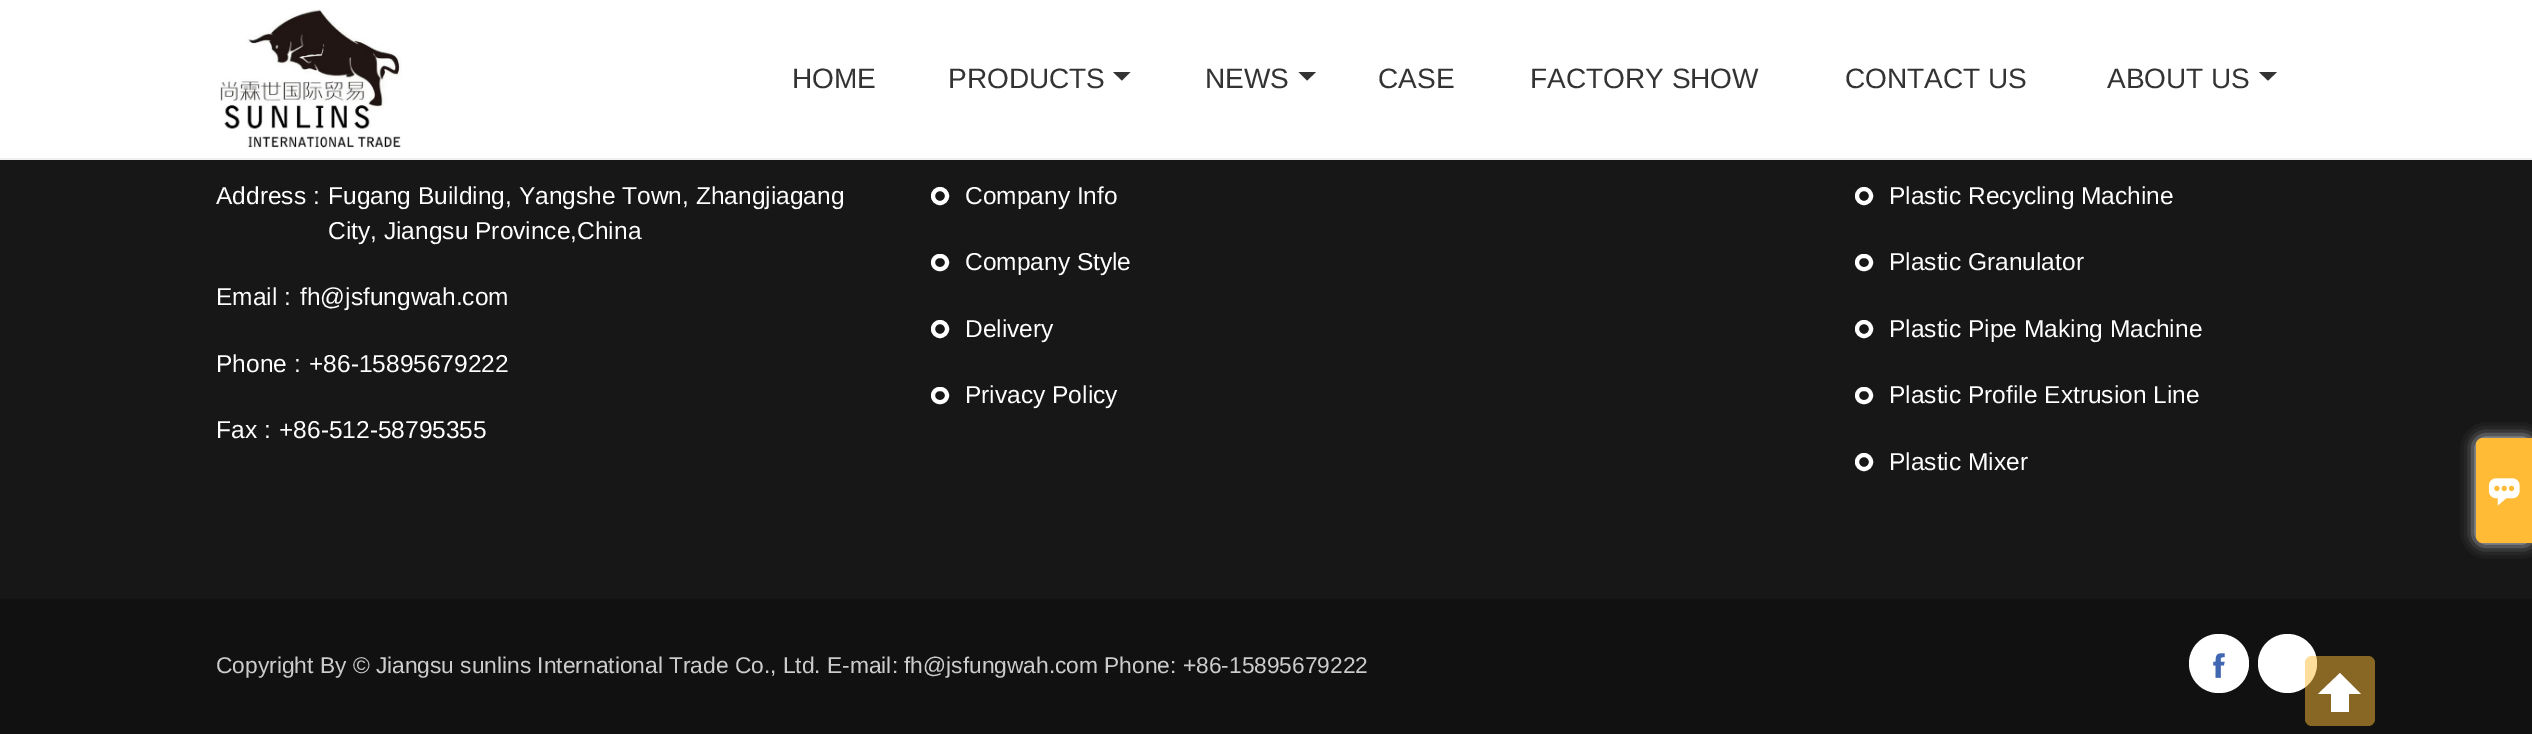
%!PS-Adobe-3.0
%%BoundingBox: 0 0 2532 734
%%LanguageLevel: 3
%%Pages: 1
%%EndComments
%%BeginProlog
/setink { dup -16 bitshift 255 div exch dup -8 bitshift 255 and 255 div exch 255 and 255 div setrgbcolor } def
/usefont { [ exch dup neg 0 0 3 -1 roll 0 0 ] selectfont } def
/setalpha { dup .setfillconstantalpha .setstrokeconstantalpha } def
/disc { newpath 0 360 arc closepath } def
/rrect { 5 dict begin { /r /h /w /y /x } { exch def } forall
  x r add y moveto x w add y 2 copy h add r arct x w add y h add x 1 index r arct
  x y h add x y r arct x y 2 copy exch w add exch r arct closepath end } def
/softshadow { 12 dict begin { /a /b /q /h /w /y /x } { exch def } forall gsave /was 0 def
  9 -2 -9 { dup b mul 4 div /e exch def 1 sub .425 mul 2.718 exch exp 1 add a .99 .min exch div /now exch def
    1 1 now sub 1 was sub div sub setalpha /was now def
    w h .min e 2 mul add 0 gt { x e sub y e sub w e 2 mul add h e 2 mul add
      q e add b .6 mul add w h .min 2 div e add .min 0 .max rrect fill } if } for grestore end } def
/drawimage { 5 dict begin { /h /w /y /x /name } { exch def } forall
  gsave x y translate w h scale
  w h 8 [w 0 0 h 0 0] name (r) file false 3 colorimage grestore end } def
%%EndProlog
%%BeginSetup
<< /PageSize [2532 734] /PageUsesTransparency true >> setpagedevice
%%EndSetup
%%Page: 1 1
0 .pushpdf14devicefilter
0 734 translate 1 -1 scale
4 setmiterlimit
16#171717 setink
0 0 2532 734 rectfill
16#FFFFFF setink
0 0 2532 158 rectfill
16#EFEFEF setink
0 158 2532 2 rectfill
(img1.raw) 220 9 182 139 drawimage
/LiberationSans-Regular 28 usefont
16#333333 setink
792 88 moveto (HOME) show
948 88 moveto (PRODUCTS) show
1113 72 moveto 1130.5 72 lineto 1122 80.5 lineto closepath fill
1205 88 moveto (NEWS) show
1298.5 72 moveto 1316 72 lineto 1307 80.5 lineto closepath fill
[
    [(CASE) 1378 88]
    [(FACTORY SHOW) 1530 88]
    [(CONTACT US) 1845 88]
    [(ABOUT US) 2107 88]
] { aload pop moveto show } forall
2259 72 moveto 2277 72 lineto 2268 80.5 lineto closepath fill
/LiberationSans-Regular 24.5 usefont
16#FFFFFF setink
[
    [(Address :) 216 204]
    [(Fugang Building, Yangshe Town, Zhangjiagang) 328 204]
    [(City, Jiangsu Province,China) 328 239]
    [(Email :) 216 305]
    [(fh@jsfungwah.com) 300 305]
    [(Phone :) 216 372]
    [(+86-15895679222) 309 372]
    [(Fax :) 216 438]
    [(+86-512-58795355) 279 438]
] { aload pop moveto show } forall
4 setlinewidth
940 196 7 disc stroke
965 204 moveto (Company Info) show
933 256 14 13 6.5 rrect stroke
965 270 moveto (Company Style) show
940 329 7 disc stroke
965 337 moveto (Delivery) show
933 389 14 13 6.5 rrect stroke
965 403 moveto (Privacy Policy) show
1864 196 7 disc stroke
1889 204 moveto (Plastic Recycling Machine) show
1857 256 14 13 6.5 rrect stroke
1889 270 moveto (Plastic Granulator) show
1864 329 7 disc stroke
1889 337 moveto (Plastic Pipe Making Machine) show
1857 389 14 13 6.5 rrect stroke
1889 403 moveto (Plastic Profile Extrusion Line) show
1864 462 7 disc stroke
1889 470 moveto (Plastic Mixer) show
16#111111 setink
0 599 2532 135 rectfill
/LiberationSans-Regular 22.75 usefont
16#CCCCCC setink
216 673 moveto (Copyright By © Jiangsu sunlins International Trade Co., Ltd. E-mail: fh@jsfungwah.com Phone: +86-15895679222) show
16#FFFFFF setink
2189 634 60 59 29.5 rrect fill
(img2.raw) 2213 653 12 25 drawimage
2287.5 663.5 29.5 disc fill
16#EAF0F6 setink
2476 438 56 105 7 7 1 softshadow
16#FFBB35 setink
2483 438 moveto 2532 438 lineto 2532 543 lineto 2483 543 lineto 2479 543 2476 540 2476 536 curveto 2476 445 lineto 2476 441 2479 438 2483 438 curveto closepath fill
(img3.raw) 2488 478 32 28 drawimage
0.5 setalpha
2305 656 70 70 7 rrect fill
1 setalpha
16#FFFFFF setink
2361 694 moveto 2340 673 lineto 2318 694 lineto 2331 694 lineto 2331 712 lineto 2349 712 lineto 2349 694 lineto closepath fill
.poppdf14devicefilter showpage
%%EOF
